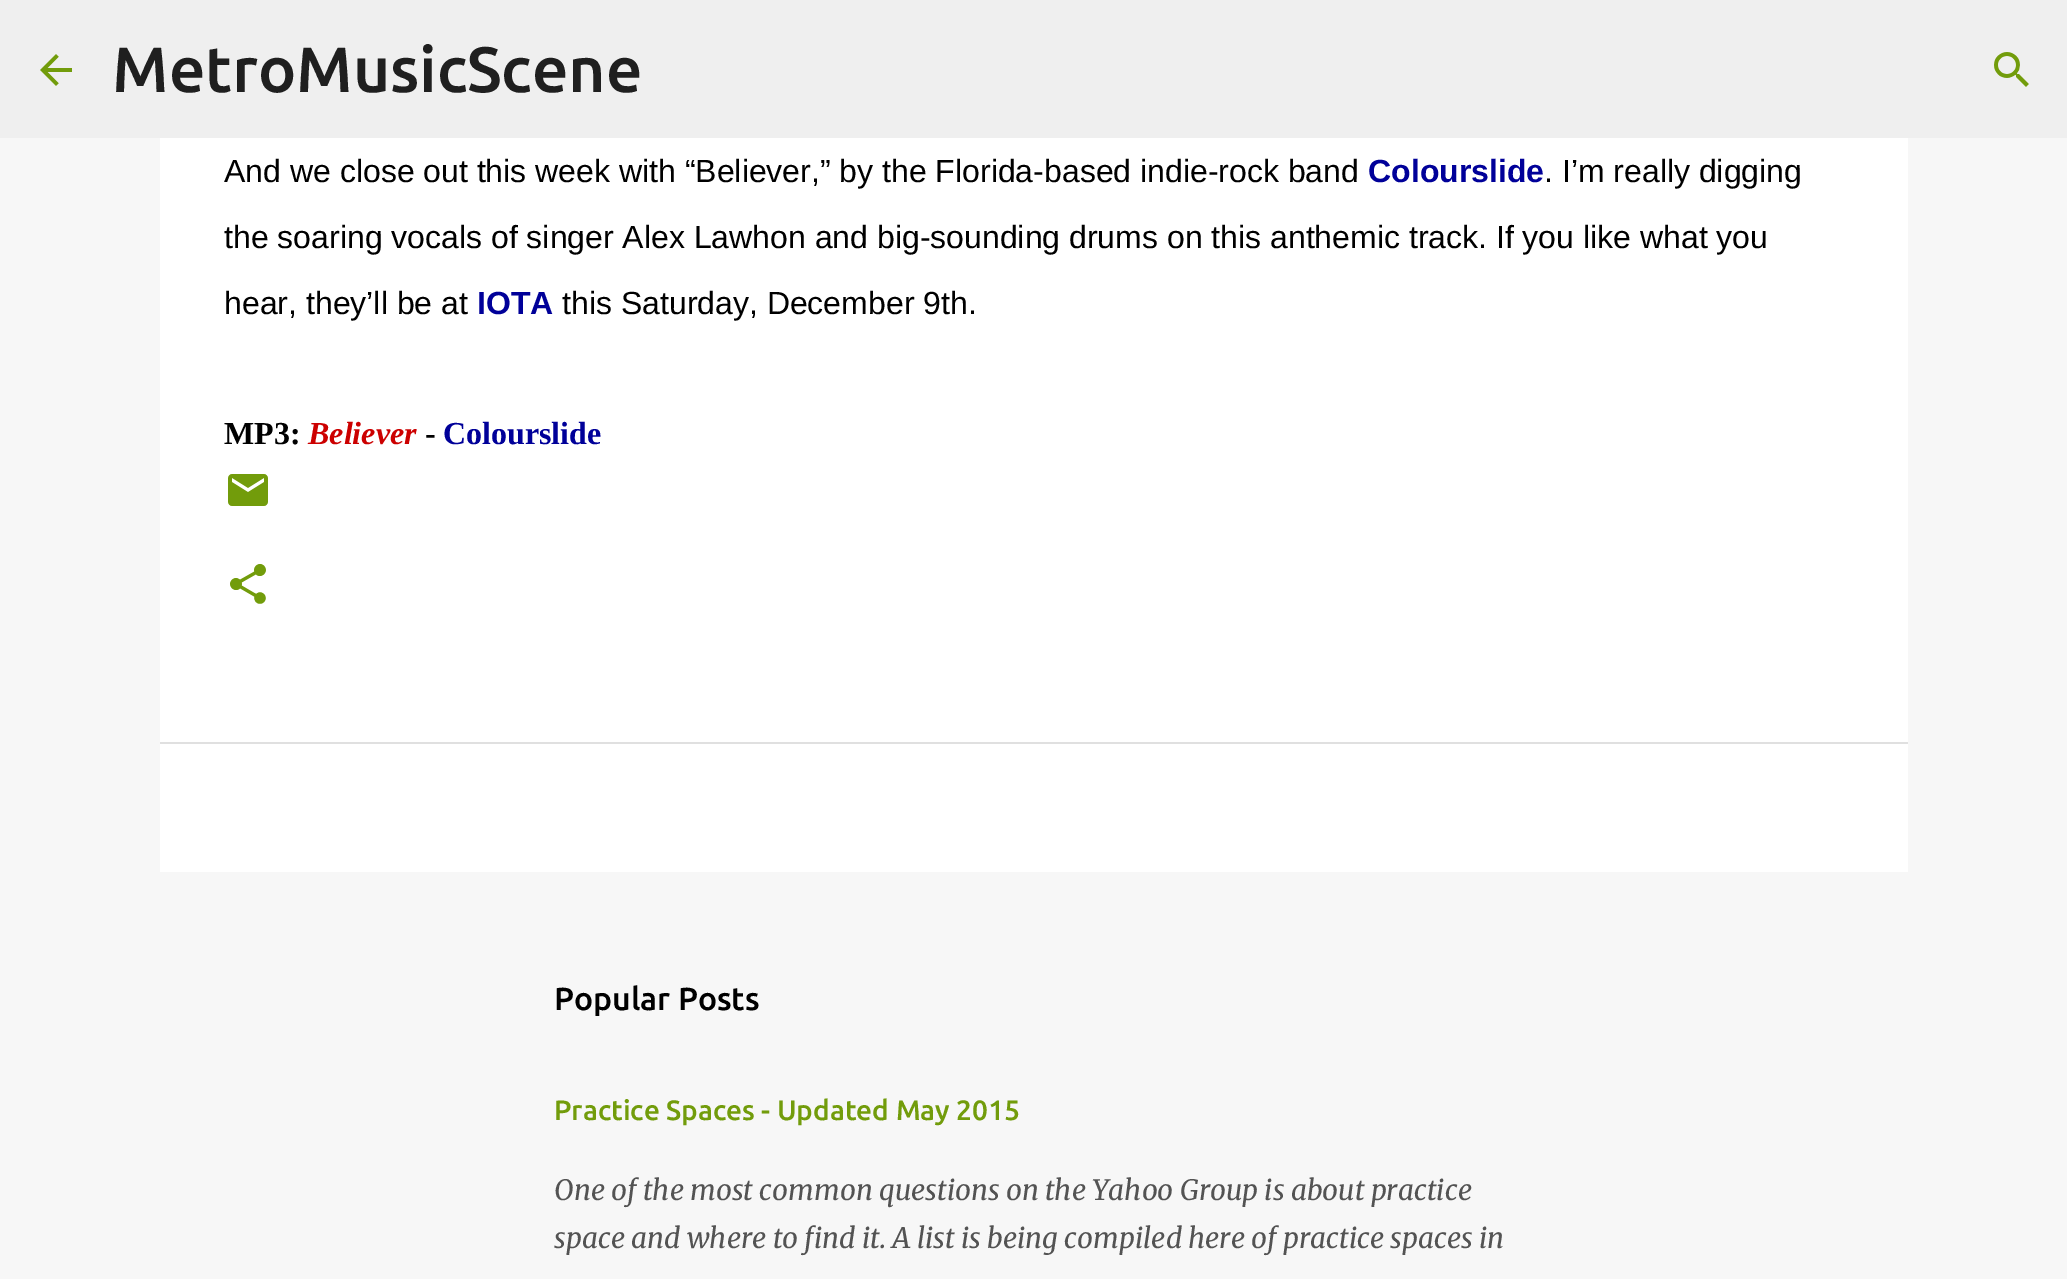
%!PS-Adobe-3.0
%%BoundingBox: 0 0 2067 1279
%%LanguageLevel: 3
%%Pages: 1
%%EndComments
%%BeginProlog
/setink { dup -16 bitshift 255 div exch dup -8 bitshift 255 and 255 div exch 255 and 255 div setrgbcolor } def
/usefont { [ exch dup neg 0 0 3 -1 roll 0 0 ] selectfont } def
/drawimage { 5 dict begin { /h /w /y /x /name } { exch def } forall
  gsave x y translate w h scale
  w h 8 [w 0 0 h 0 0] name (r) file false 3 colorimage grestore end } def
%%EndProlog
%%BeginSetup
<< /PageSize [2067 1279] >> setpagedevice
%%EndSetup
%%Page: 1 1
0 1279 translate 1 -1 scale
4 setmiterlimit
16#F7F7F7 setink
0 0 2067 1279 rectfill
16#EFEFEF setink
0 0 2067 138 rectfill
(img1.raw) 40 54 32 32 drawimage
/Ubuntu-Medium 64 usefont
16#1F1F1F setink
112 92 moveto (MetroMusicScene) show
(img2.raw) 1994 52 35 35 drawimage
16#FFFFFF setink
160 138 1748 604 rectfill
/LiberationSans-Regular 32 usefont
16#000000 setink
224 182 moveto (And we close out this week with “Believer,” by the Florida-based indie-rock band) show
/LiberationSans-Bold 32 usefont
16#000099 setink
1368 182 moveto (Colourslide) show
/LiberationSans-Regular 32 usefont
16#000000 setink
[
    [(. I’m really digging) 1544 182]
    [(the soaring vocals of singer Alex Lawhon and big-sounding drums on this anthemic track. If you like what you) 224 248]
    [(hear, they’ll be at) 224 314]
] { aload pop moveto show } forall
/LiberationSans-Bold 32 usefont
16#000099 setink
477 314 moveto (IOTA) show
/LiberationSans-Regular 32 usefont
16#000000 setink
562 314 moveto (this Saturday, December 9th.) show
/LiberationSerif-Bold 32 usefont
224 444 moveto (MP3:) show
/LiberationSerif-BoldItalic 32 usefont
16#CC0000 setink
308 444 moveto (Believer) show
/LiberationSerif-Bold 32 usefont
16#000000 setink
425 444 moveto (-) show
16#000099 setink
443 444 moveto (Colourslide) show
(img3.raw) 228 474 40 32 drawimage
(img4.raw) 230 564 36 40 drawimage
16#FFFFFF setink
160 744 1748 128 rectfill
16#E0E0E0 setink
160 742 1748 2 rectfill
/Ubuntu-Medium 32 usefont
16#000000 setink
554 1010 moveto (Popular Posts) show
/Ubuntu-Medium 28 usefont
16#729C0B setink
554 1120 moveto (Practice Spaces - Updated May 2015) show
/Merriweather-Italic 28 usefont
16#535353 setink
554 1200 moveto (One of the most common questions on the Yahoo Group is about practice) show
554 1248 moveto (space and where to find it. A list is being compiled here of practice spaces in) show
showpage
%%EOF
